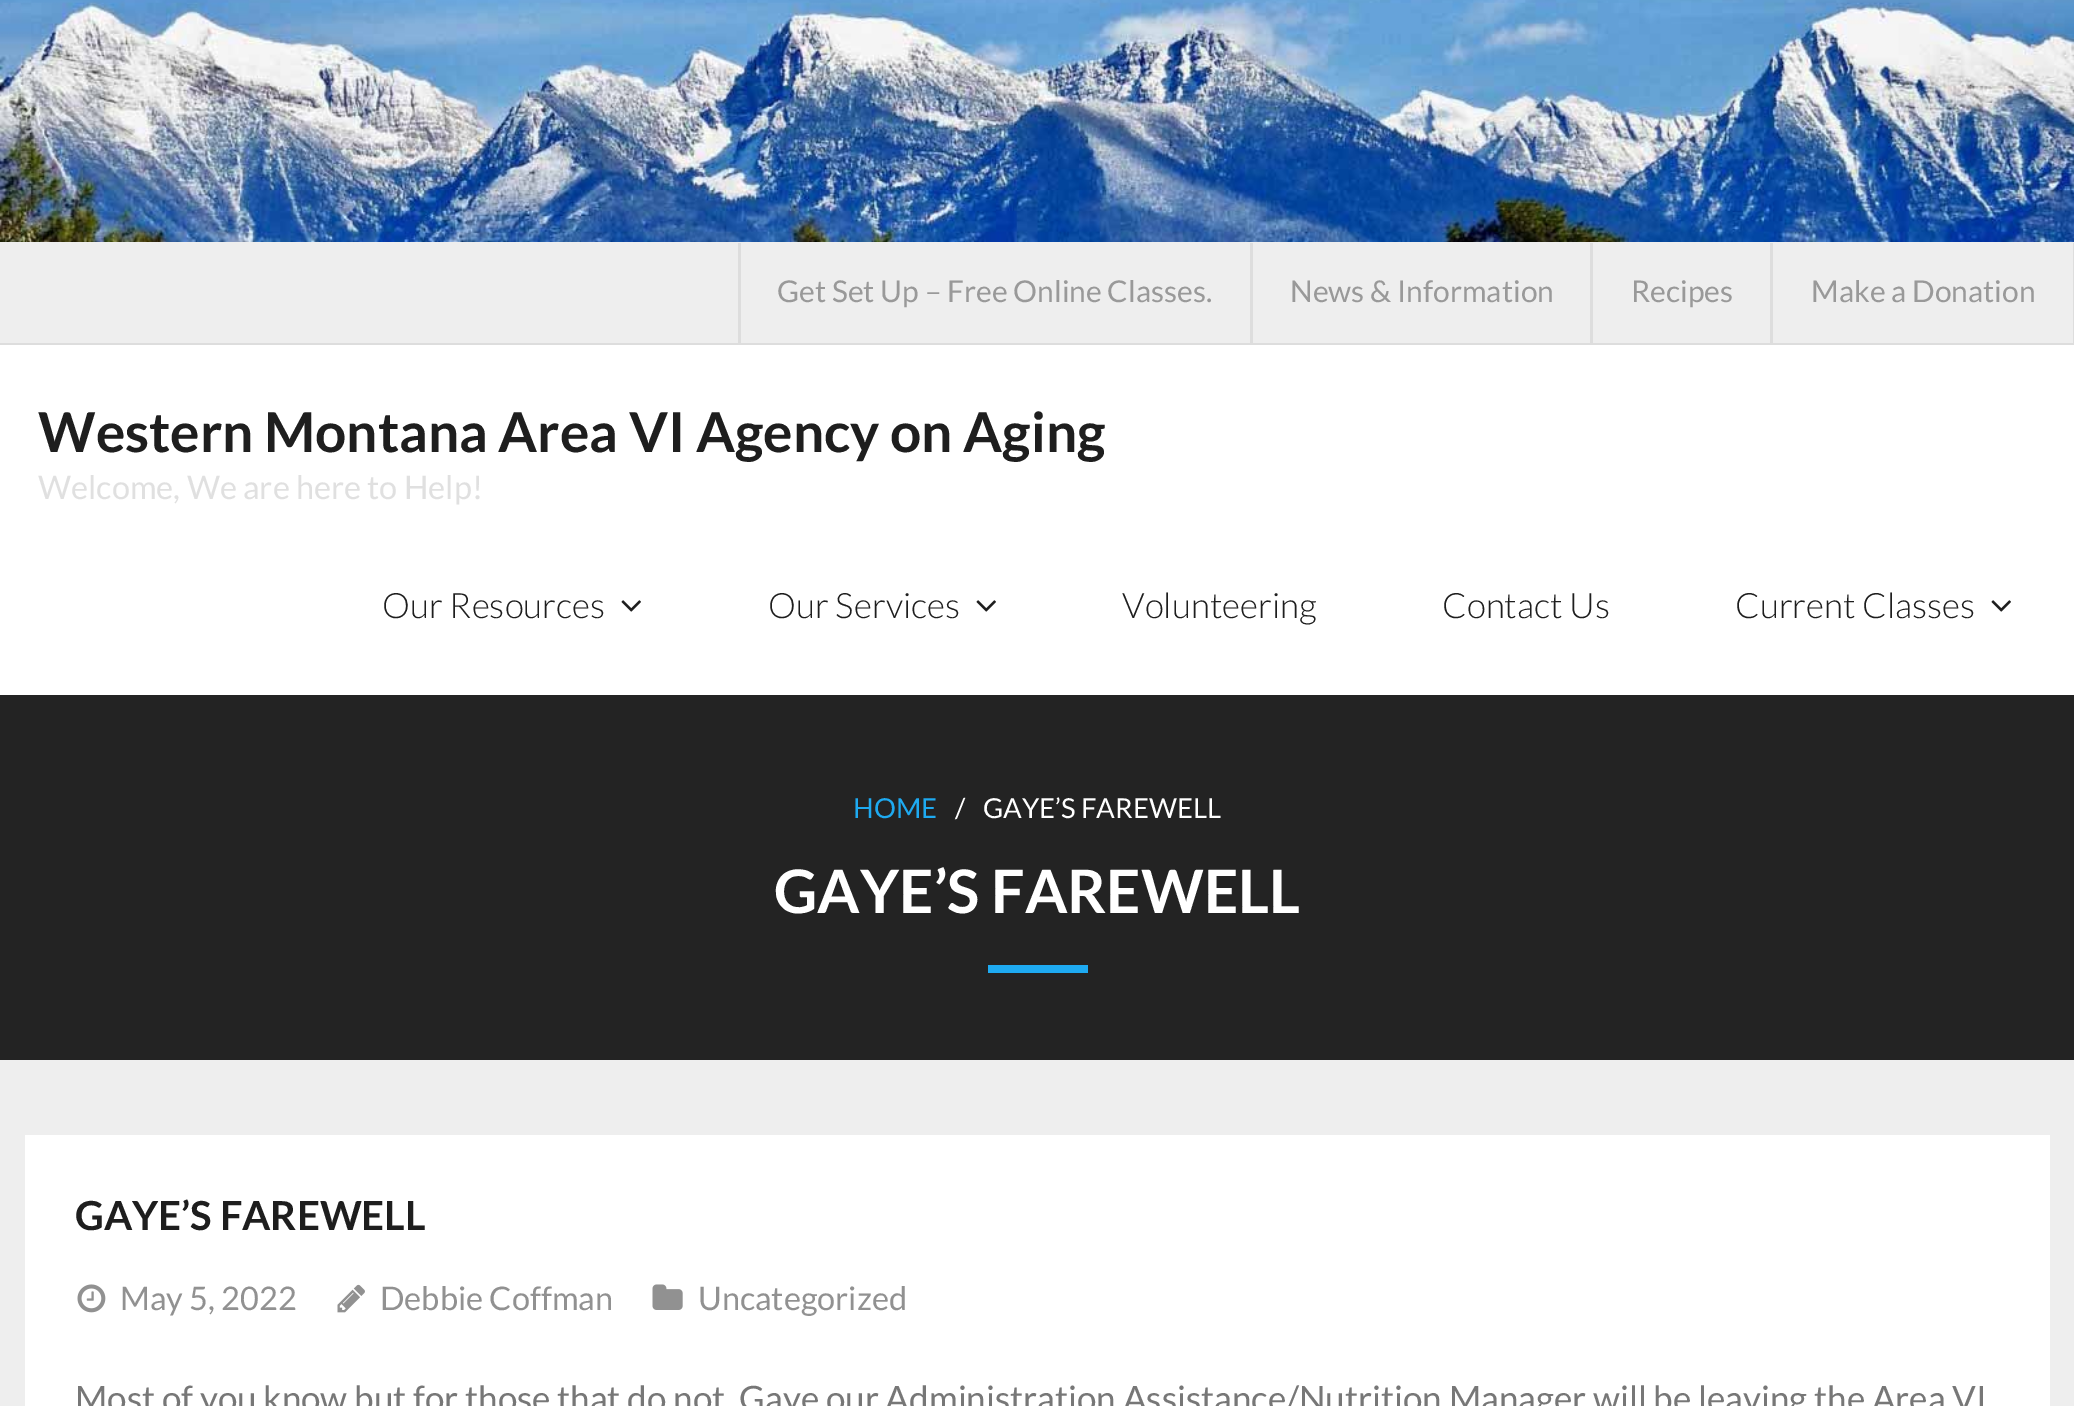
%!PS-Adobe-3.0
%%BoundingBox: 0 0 2074 1406
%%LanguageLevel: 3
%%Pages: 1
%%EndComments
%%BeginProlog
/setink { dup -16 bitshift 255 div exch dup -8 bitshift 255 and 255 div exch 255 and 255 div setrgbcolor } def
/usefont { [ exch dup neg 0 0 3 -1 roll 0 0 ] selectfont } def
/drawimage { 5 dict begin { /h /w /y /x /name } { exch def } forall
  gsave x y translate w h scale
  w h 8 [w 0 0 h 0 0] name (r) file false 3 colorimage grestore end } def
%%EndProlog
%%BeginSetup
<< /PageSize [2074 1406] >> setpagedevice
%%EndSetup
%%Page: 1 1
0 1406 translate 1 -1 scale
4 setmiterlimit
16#EEEEEE setink
0 0 2074 1406 rectfill
(img1.raw) 0 0 2074 242 drawimage
16#DDDDDD setink
0 343 2074 2 rectfill
738 243 3 100 rectfill
/Lato-Regular 30 usefont
16#999999 setink
777 302 moveto (Get Set Up – Free Online Classes.) show
16#DDDDDD setink
1250 243 3 100 rectfill
16#999999 setink
1290 302 moveto (News & Information) show
16#DDDDDD setink
1590 243 3 100 rectfill
16#999999 setink
1631 302 moveto (Recipes) show
16#DDDDDD setink
2073 243 1 100 rectfill
1770 243 3 100 rectfill
16#999999 setink
1811 302 moveto (Make a Donation) show
16#FFFFFF setink
0 345 2074 350 rectfill
/Lato-Bold 55 usefont
16#1E1E1E setink
38 452 moveto (Western Montana Area VI Agency on Aging) show
/Lato-Regular 32.5 usefont
16#E0E0E0 setink
38 499 moveto (Welcome, We are here to Help!) show
/Lato-Light 35 usefont
16#1E1E1E setink
382 618 moveto (Our Resources) show
(img2.raw) 621 600 20 12 drawimage
768 618 moveto (Our Services) show
(img2.raw) 976 600 20 12 drawimage
[
    [(Volunteering) 1122 618]
    [(Contact Us) 1442 618]
    [(Current Classes) 1735 618]
] { aload pop moveto show } forall
(img2.raw) 1991 600 20 12 drawimage
16#232323 setink
0 695 2074 365 rectfill
/Lato-Regular 27.5 usefont
16#1EAAF1 setink
853 818 moveto (HOME) show
16#FFFFFF setink
955 818 moveto (/) show
983 818 moveto (GAYE’S FAREWELL) show
/Lato-Bold 60 usefont
774 913 moveto (GAYE’S FAREWELL) show
16#1EAAF1 setink
988 965 100 8 rectfill
16#FFFFFF setink
25 1135 2025 271 rectfill
/Lato-Bold 40 usefont
16#1E1E1E setink
75 1230 moveto (GAYE’S FAREWELL) show
(img3.raw) 77 1284 29 29 drawimage
/Lato-Regular 32.5 usefont
16#919191 setink
120 1310 moveto (May 5, 2022) show
(img4.raw) 337 1284 28 29 drawimage
380 1310 moveto (Debbie Coffman) show
(img5.raw) 652 1284 31 26 drawimage
698 1310 moveto (Uncategorized) show
/Lato-Regular 35 usefont
16#777777 setink
75 1411 moveto (Most of you know but for those that do not, Gaye our Administration Assistance/Nutrition Manager will be leaving the Area VI) show
showpage
%%EOF
